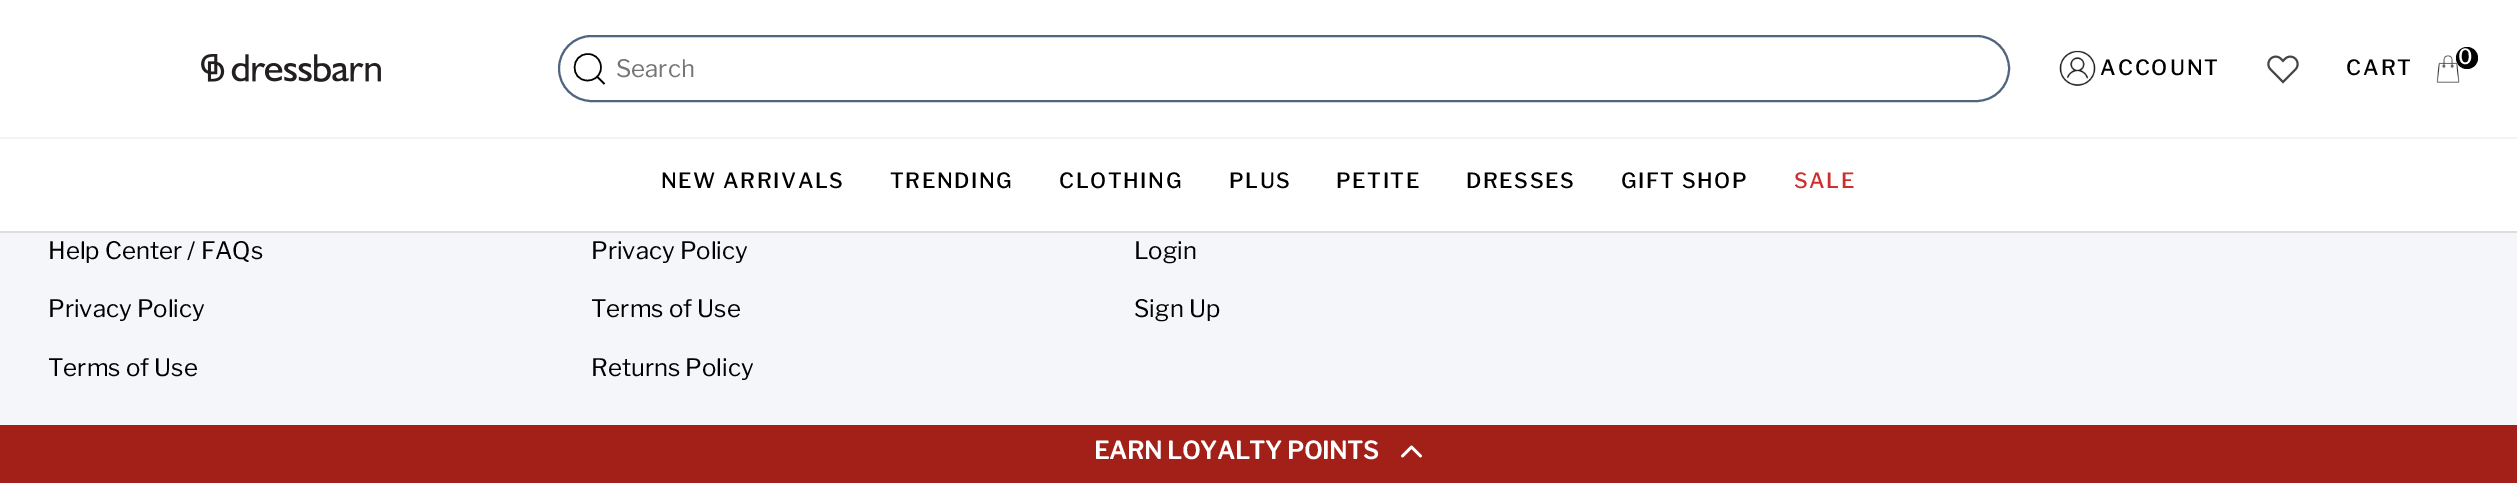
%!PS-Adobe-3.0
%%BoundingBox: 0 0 2517 483
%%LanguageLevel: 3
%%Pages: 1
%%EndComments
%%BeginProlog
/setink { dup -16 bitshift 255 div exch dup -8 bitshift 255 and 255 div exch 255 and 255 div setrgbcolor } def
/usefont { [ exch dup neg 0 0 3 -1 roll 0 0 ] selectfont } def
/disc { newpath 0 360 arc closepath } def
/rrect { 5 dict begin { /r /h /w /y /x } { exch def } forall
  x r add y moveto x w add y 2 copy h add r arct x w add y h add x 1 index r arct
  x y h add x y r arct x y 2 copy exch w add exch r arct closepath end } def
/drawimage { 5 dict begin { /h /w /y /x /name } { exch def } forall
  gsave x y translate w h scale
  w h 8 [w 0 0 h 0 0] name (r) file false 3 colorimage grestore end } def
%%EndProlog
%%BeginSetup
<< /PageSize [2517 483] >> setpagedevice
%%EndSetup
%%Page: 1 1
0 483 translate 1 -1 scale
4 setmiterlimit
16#F5F6FA setink
0 0 2517 483 rectfill
16#FFFFFF setink
0 0 2517 231 rectfill
(img1.raw) 201 54 180 28 drawimage
16#506580 setink
2 setlinewidth
559 36 1450 65 32.5 rrect stroke
16#000000 setink
1.5 setlinewidth
588 54 moveto 600.5 54 606 70.5 595.5 78 curveto 593 80 590 80.5 587 80.5 curveto 570 80 570.5 54 588 54 curveto closepath 597 76.5 moveto 604.5 84 lineto stroke
/LibreFranklin-Regular 24 usefont
16#757575 setink
616 77 moveto (Search) show
(img2.raw) 2059 50 37 36 drawimage
/LibreFranklin-Medium 21 usefont
16#000000 setink
2100 75 moveto 2 0 (ACCOUNT) ashow
(img3.raw) 2267 55 32 29 drawimage
2346 75 moveto 2 0 (CART) ashow
(img4.raw) 2436 55 24 28 drawimage
2467 58 11 disc fill
16#FFFFFF setink
2458 64 moveto 2 0 (0) ashow
16#F3F3F3 setink
0 137 2517 2 rectfill
16#000000 setink
661 188 moveto 1.6 0 (NEW ARRIVALS) ashow
890 188 moveto 1.6 0 (TRENDING) ashow
1059 188 moveto 1.6 0 (CLOTHING) ashow
1229 188 moveto 1.6 0 (PLUS) ashow
1336 188 moveto 1.6 0 (PETITE) ashow
1466 188 moveto 1.6 0 (DRESSES) ashow
1621 188 moveto 1.6 0 (GIFT SHOP) ashow
16#D02E2E setink
1794 188 moveto 1.6 0 (SALE) ashow
16#DDDDE1 setink
0 231 2517 2 rectfill
/LibreFranklin-Regular 24 usefont
16#000000 setink
[
    [(Help Center / FAQs) 48 259]
    [(Privacy Policy) 48 317]
    [(Terms of Use) 48 376]
    [(Privacy Policy) 591 259]
    [(Terms of Use) 591 317]
    [(Returns Policy) 591 376]
    [(Login) 1134 259]
    [(Sign Up) 1134 317]
] { aload pop moveto show } forall
16#A22017 setink
0 425 2517 58 rectfill
/LibreFranklin-Bold 24 usefont
16#FFFFFF setink
1094 459 moveto (EARN LOYALTY POINTS) show
(img5.raw) 1401 445 21 13 drawimage
showpage
%%EOF
